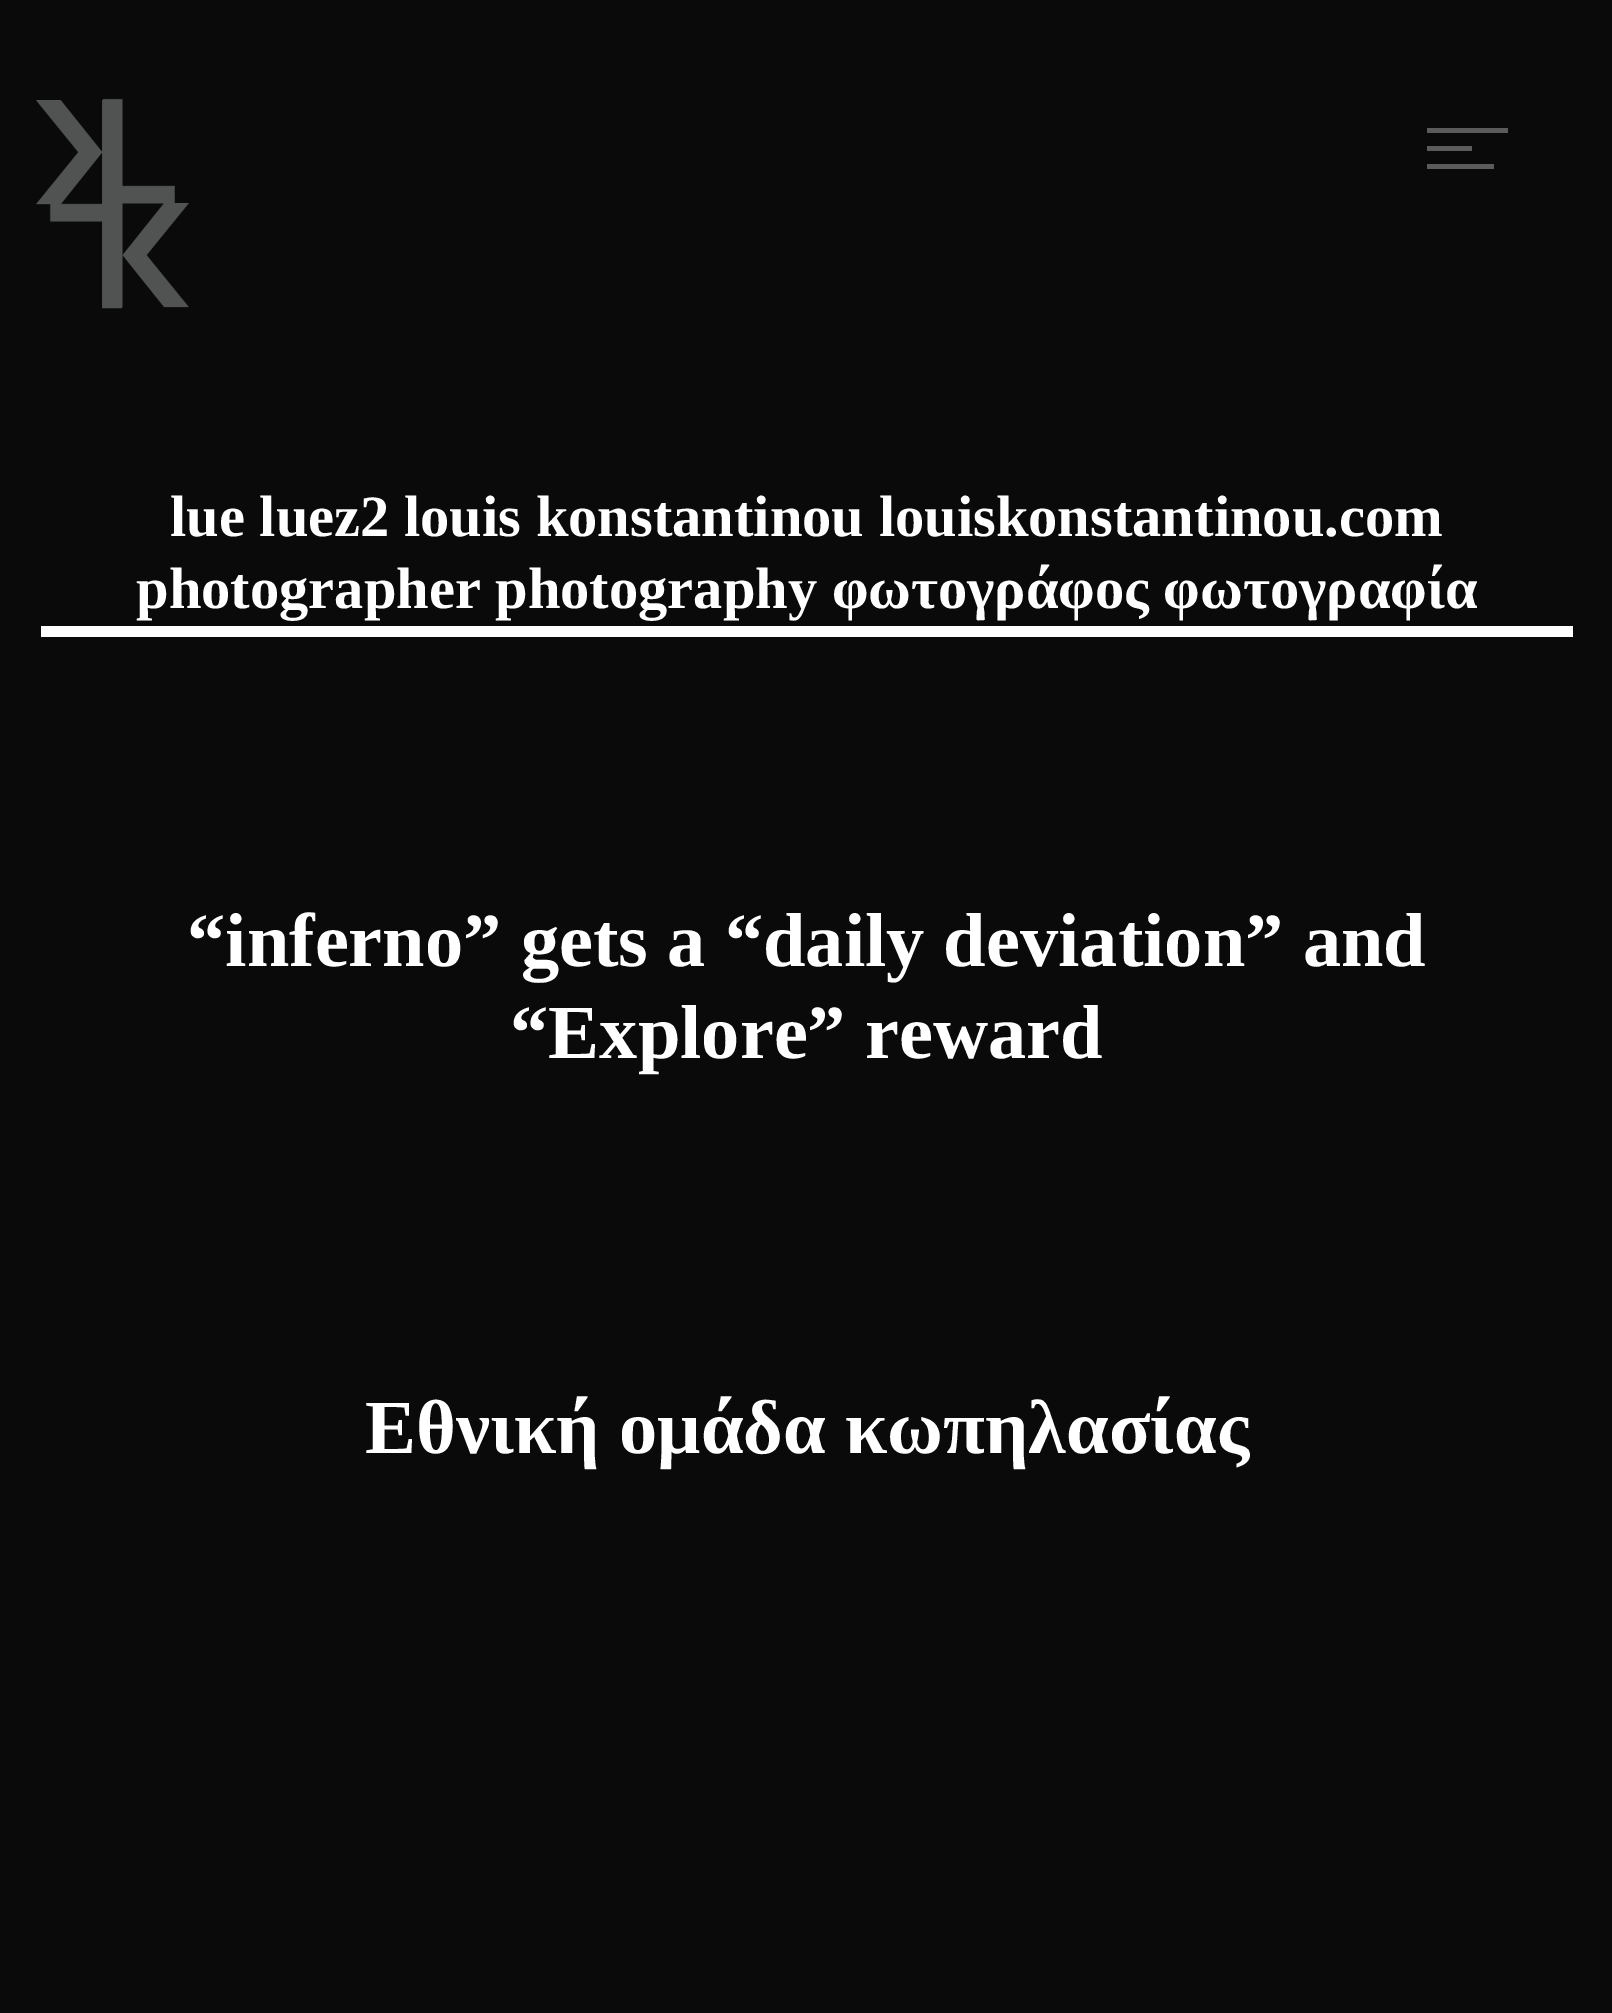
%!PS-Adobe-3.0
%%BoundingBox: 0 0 1612 2013
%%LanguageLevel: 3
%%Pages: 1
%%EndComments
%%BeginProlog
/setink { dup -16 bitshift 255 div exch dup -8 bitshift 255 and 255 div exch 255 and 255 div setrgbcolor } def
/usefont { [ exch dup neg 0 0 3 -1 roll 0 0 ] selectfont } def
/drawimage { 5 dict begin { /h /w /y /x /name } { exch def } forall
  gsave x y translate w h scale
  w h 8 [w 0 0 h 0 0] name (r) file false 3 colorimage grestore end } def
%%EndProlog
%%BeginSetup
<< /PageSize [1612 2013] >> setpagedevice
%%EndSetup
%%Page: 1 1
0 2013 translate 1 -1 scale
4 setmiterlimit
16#0A0A0A setink
0 0 1612 2013 rectfill
(img1.raw) 36 98 153 211 drawimage
[
    [1427 128 81 5 16#5B5B5B]
    [1427 146 45 5 16#5B5B5B]
    [1427 164 67 5 16#5B5B5B]
    [41 626 1532 11 16#FFFFFF]
] { aload pop setink rectfill } forall
/LiberationSerif-Bold 58.5 usefont
170 536 moveto (lue luez2 louis konstantinou louiskonstantinou.com) show
136 608 moveto (photographer photography φωτογράφος φωτογραφία) show
/LiberationSerif-Bold 76.5 usefont
[
    [(“inferno” gets a “daily deviation” and) 187 966]
    [(“Explore” reward) 510 1058]
    [(Εθνική ομάδα κωπηλασίας) 365 1453]
] { aload pop moveto show } forall
showpage
%%EOF
